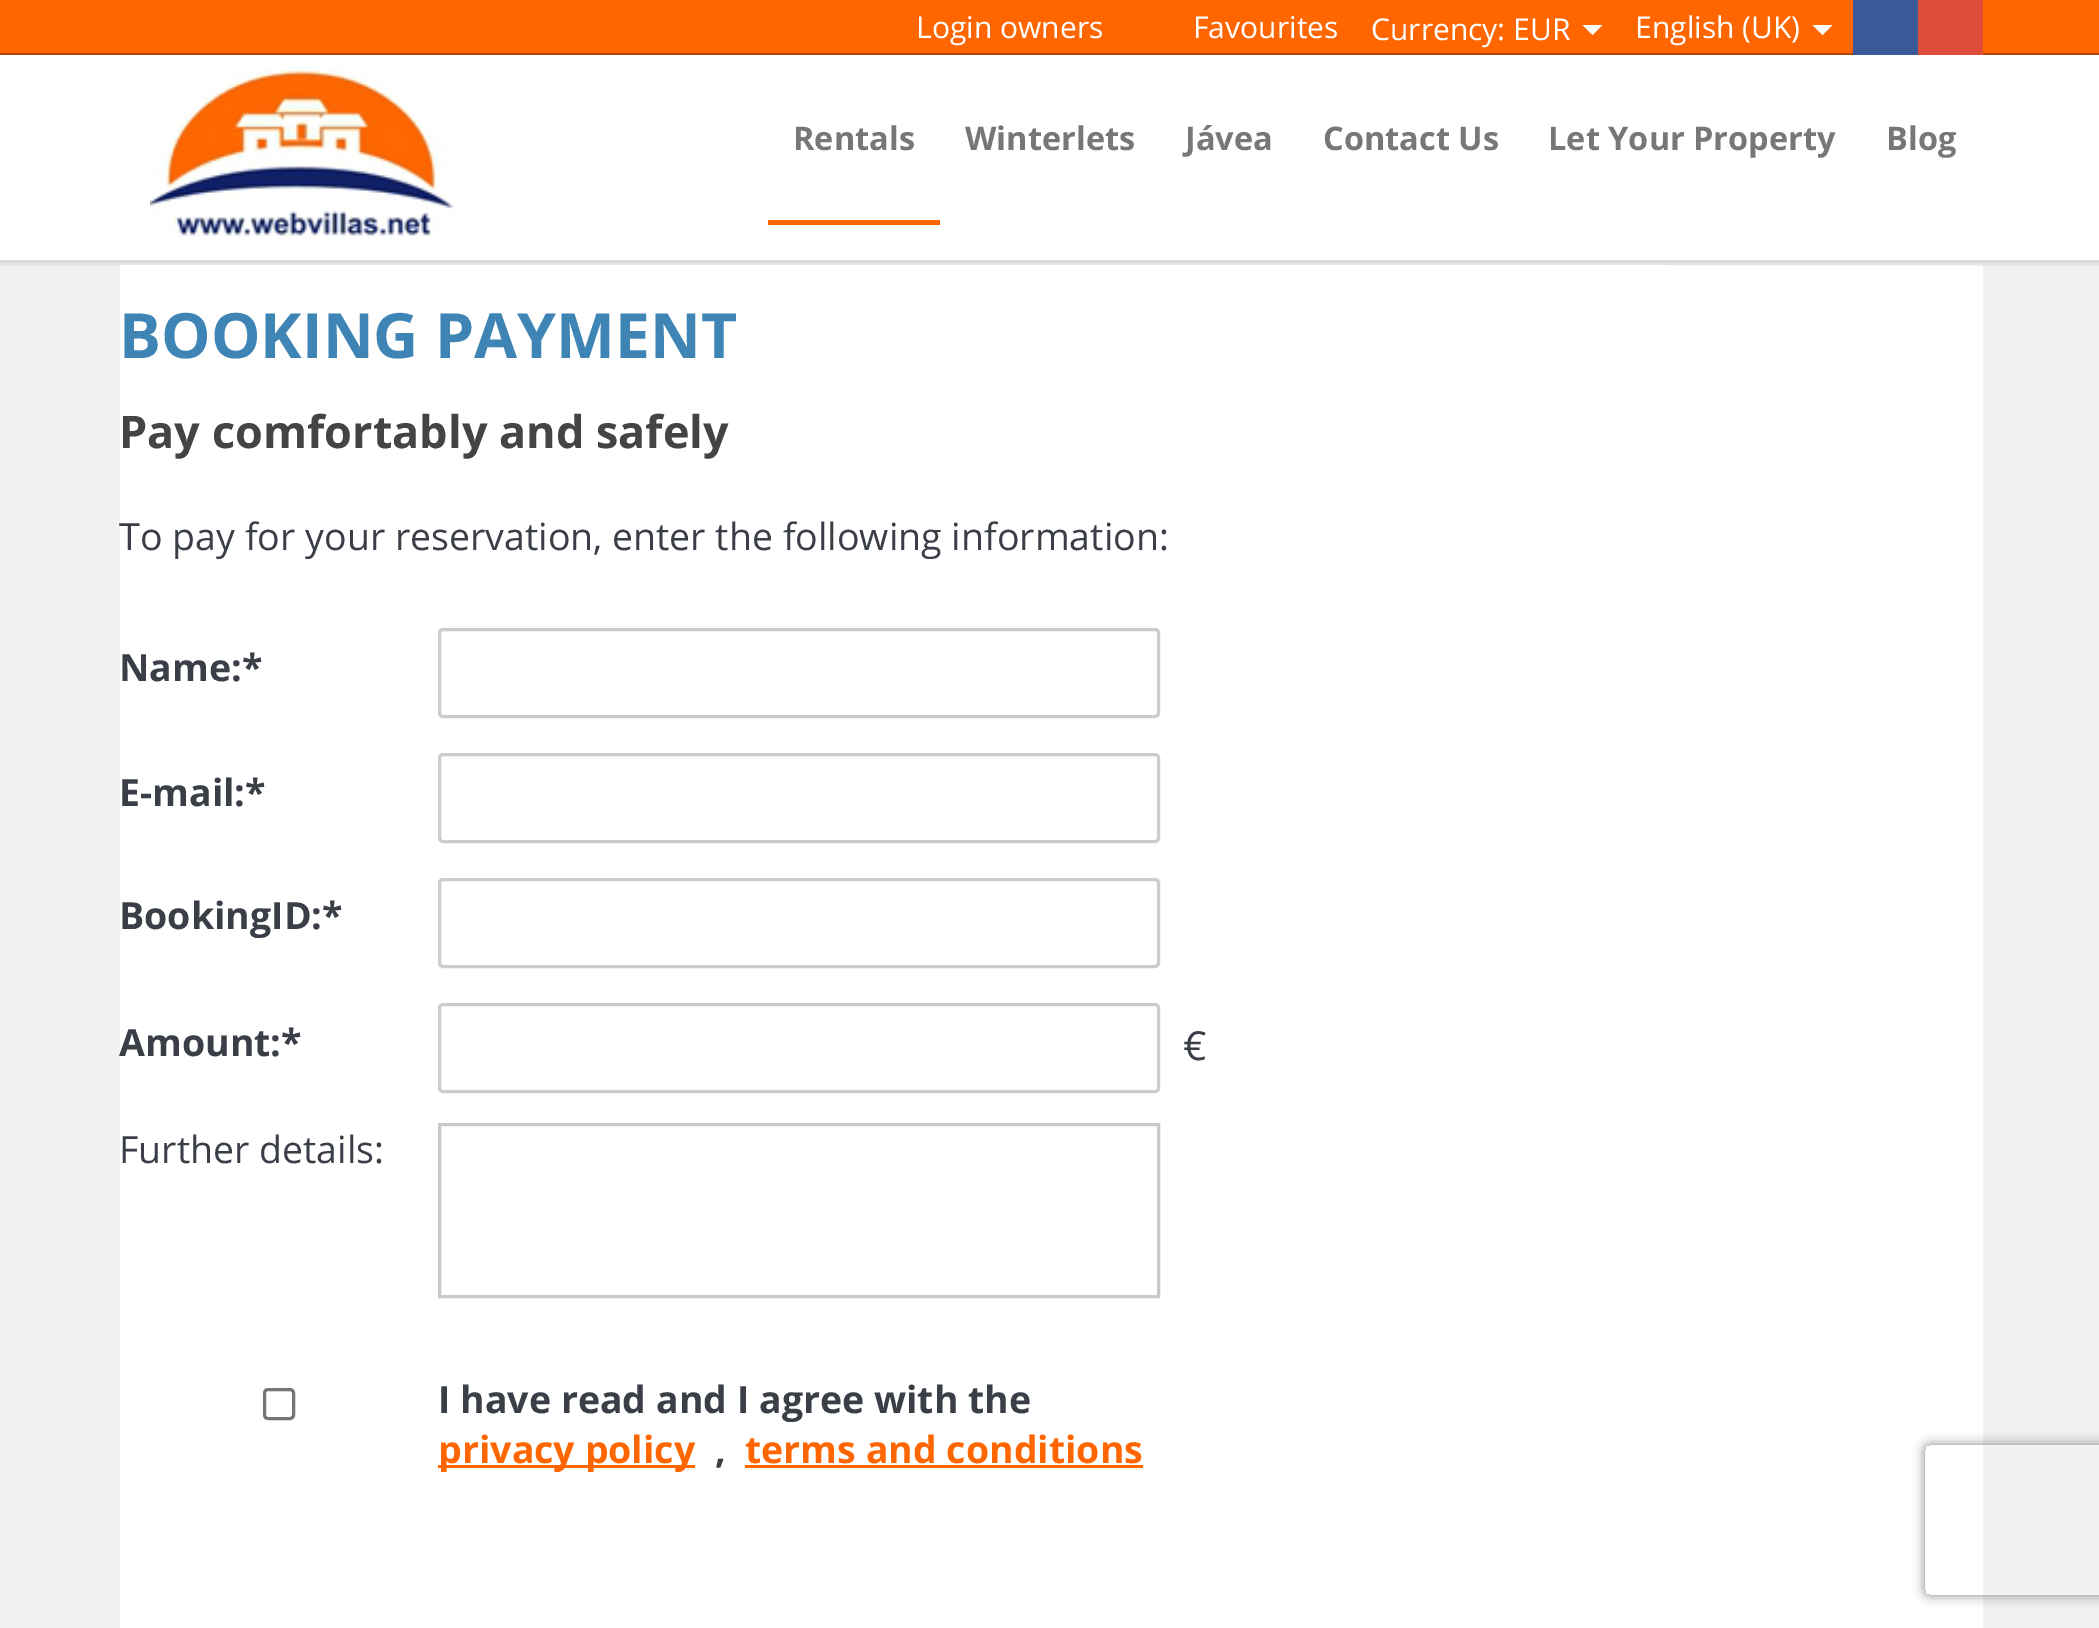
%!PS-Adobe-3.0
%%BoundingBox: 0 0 2099 1628
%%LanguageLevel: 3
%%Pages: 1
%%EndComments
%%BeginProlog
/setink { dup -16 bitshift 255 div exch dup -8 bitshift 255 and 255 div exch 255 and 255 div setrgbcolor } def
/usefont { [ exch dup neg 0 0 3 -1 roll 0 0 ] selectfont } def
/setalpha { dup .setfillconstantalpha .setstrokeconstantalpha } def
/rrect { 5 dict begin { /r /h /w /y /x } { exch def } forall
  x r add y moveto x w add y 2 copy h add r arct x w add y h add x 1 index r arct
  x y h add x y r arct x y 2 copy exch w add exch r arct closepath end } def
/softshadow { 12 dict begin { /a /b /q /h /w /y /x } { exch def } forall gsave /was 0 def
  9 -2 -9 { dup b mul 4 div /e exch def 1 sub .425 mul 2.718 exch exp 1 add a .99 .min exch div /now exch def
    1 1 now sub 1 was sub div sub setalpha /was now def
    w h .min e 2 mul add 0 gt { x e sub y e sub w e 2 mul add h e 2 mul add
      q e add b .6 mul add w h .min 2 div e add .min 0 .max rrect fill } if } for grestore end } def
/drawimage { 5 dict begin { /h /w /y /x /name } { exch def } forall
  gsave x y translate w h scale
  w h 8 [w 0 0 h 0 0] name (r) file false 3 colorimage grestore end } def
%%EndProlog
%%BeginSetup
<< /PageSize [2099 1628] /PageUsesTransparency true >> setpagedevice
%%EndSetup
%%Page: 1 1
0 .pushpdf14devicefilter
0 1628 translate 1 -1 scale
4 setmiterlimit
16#F1F1F1 setink
0 0 2099 1628 rectfill
[
    [0 263 2099 3 16#E5E5E5]
    [0 0 2099 53 16#FF6600]
    [0 53 2099 2 16#B34700]
] { aload pop setink rectfill } forall
/OpenSans-Regular 30 usefont
16#FFFFFF setink
[
    [(Login owners) 916 38]
    [(Favourites) 1193 38]
    [(Currency: EUR) 1371 40]
] { aload pop moveto show } forall
1582.5 25 moveto 1602.5 25 lineto 1592.5 35 lineto closepath fill
1635 38 moveto (English \(UK\)) show
1812.5 25 moveto 1832.5 25 lineto 1822.5 35 lineto closepath fill
[
    [1853 0 65 55 16#3B5998]
    [1918 0 65 55 16#DD4B39]
    [0 55 2099 205 16#FFFFFF]
    [0 260 2099 3 16#D9D9D9]
] { aload pop setink rectfill } forall
(img1.raw) 150 67 304 171 drawimage
16#FF6600 setink
768 220 172 5 rectfill
/OpenSans-Bold 32.5 usefont
16#777777 setink
[
    [(Rentals) 793 150]
    [(Winterlets) 965 150]
    [(Jávea) 1185 150]
    [(Contact Us) 1323 150]
    [(Let Your Property) 1548 150]
    [(Blog) 1886 150]
] { aload pop moveto show } forall
[
    [1670 266 313 1362 16#FFFFFF]
    [1670 265 313 1 16#F2F2F2]
    [120 265 1550 1363 16#FFFFFF]
] { aload pop setink rectfill } forall
/OpenSans-Bold 62.5 usefont
16#3E85B6 setink
119 358 moveto (BOOKING PAYMENT) show
/OpenSans-Bold 45 usefont
16#444444 setink
119 448 moveto (Pay comfortably and safely) show
/OpenSans-Regular 37.5 usefont
16#393E47 setink
119 550 moveto (To pay for your reservation, enter the following information:) show
/OpenSans-Bold 37.5 usefont
119 681 moveto (Name:*) show
16#CCCCCC setink
3 setlinewidth
439.5 629.5 719 87 3.5 rrect stroke
16#393E47 setink
119 806 moveto (E-mail:*) show
16#CCCCCC setink
439.5 754.5 719 87 3.5 rrect stroke
16#393E47 setink
119 929 moveto (BookingID:*) show
16#CCCCCC setink
439.5 879.5 719 87 3.5 rrect stroke
16#393E47 setink
119 1056 moveto (Amount:*) show
16#CCCCCC setink
439.5 1004.5 719 87 3.5 rrect stroke
/OpenSans-Regular 40 usefont
16#393E47 setink
1183 1060 moveto (€) show
/OpenSans-Regular 37.5 usefont
119 1163 moveto (Further details:) show
16#C8C8C8 setink
439.5 1124.5 719 172 rectstroke
16#767676 setink
264.5 1389.5 29 29 3.5 rrect stroke
/OpenSans-Bold 37.5 usefont
16#393E47 setink
438 1413 moveto (I have read and I agree with the) show
16#FF6600 setink
438 1465 257 3 rectfill
438 1463 moveto (privacy policy) show
16#393E47 setink
715 1463 moveto (,) show
16#FF6600 setink
745 1463 moveto (terms and conditions) show
745 1465 398 3 rectfill
gsave
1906 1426 moveto 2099 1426 lineto 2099 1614 lineto 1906 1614 lineto closepath 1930 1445 moveto 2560 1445 lineto 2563 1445 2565 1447 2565 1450 curveto 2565 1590 lineto 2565 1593 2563 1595 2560 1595 curveto 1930 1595 lineto 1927 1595 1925 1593 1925 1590 curveto 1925 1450 lineto 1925 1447 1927 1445 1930 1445 curveto closepath eoclip newpath
16#808080 setink
1925 1445 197 150 5 6 1 softshadow
grestore
.poppdf14devicefilter showpage
%%EOF
